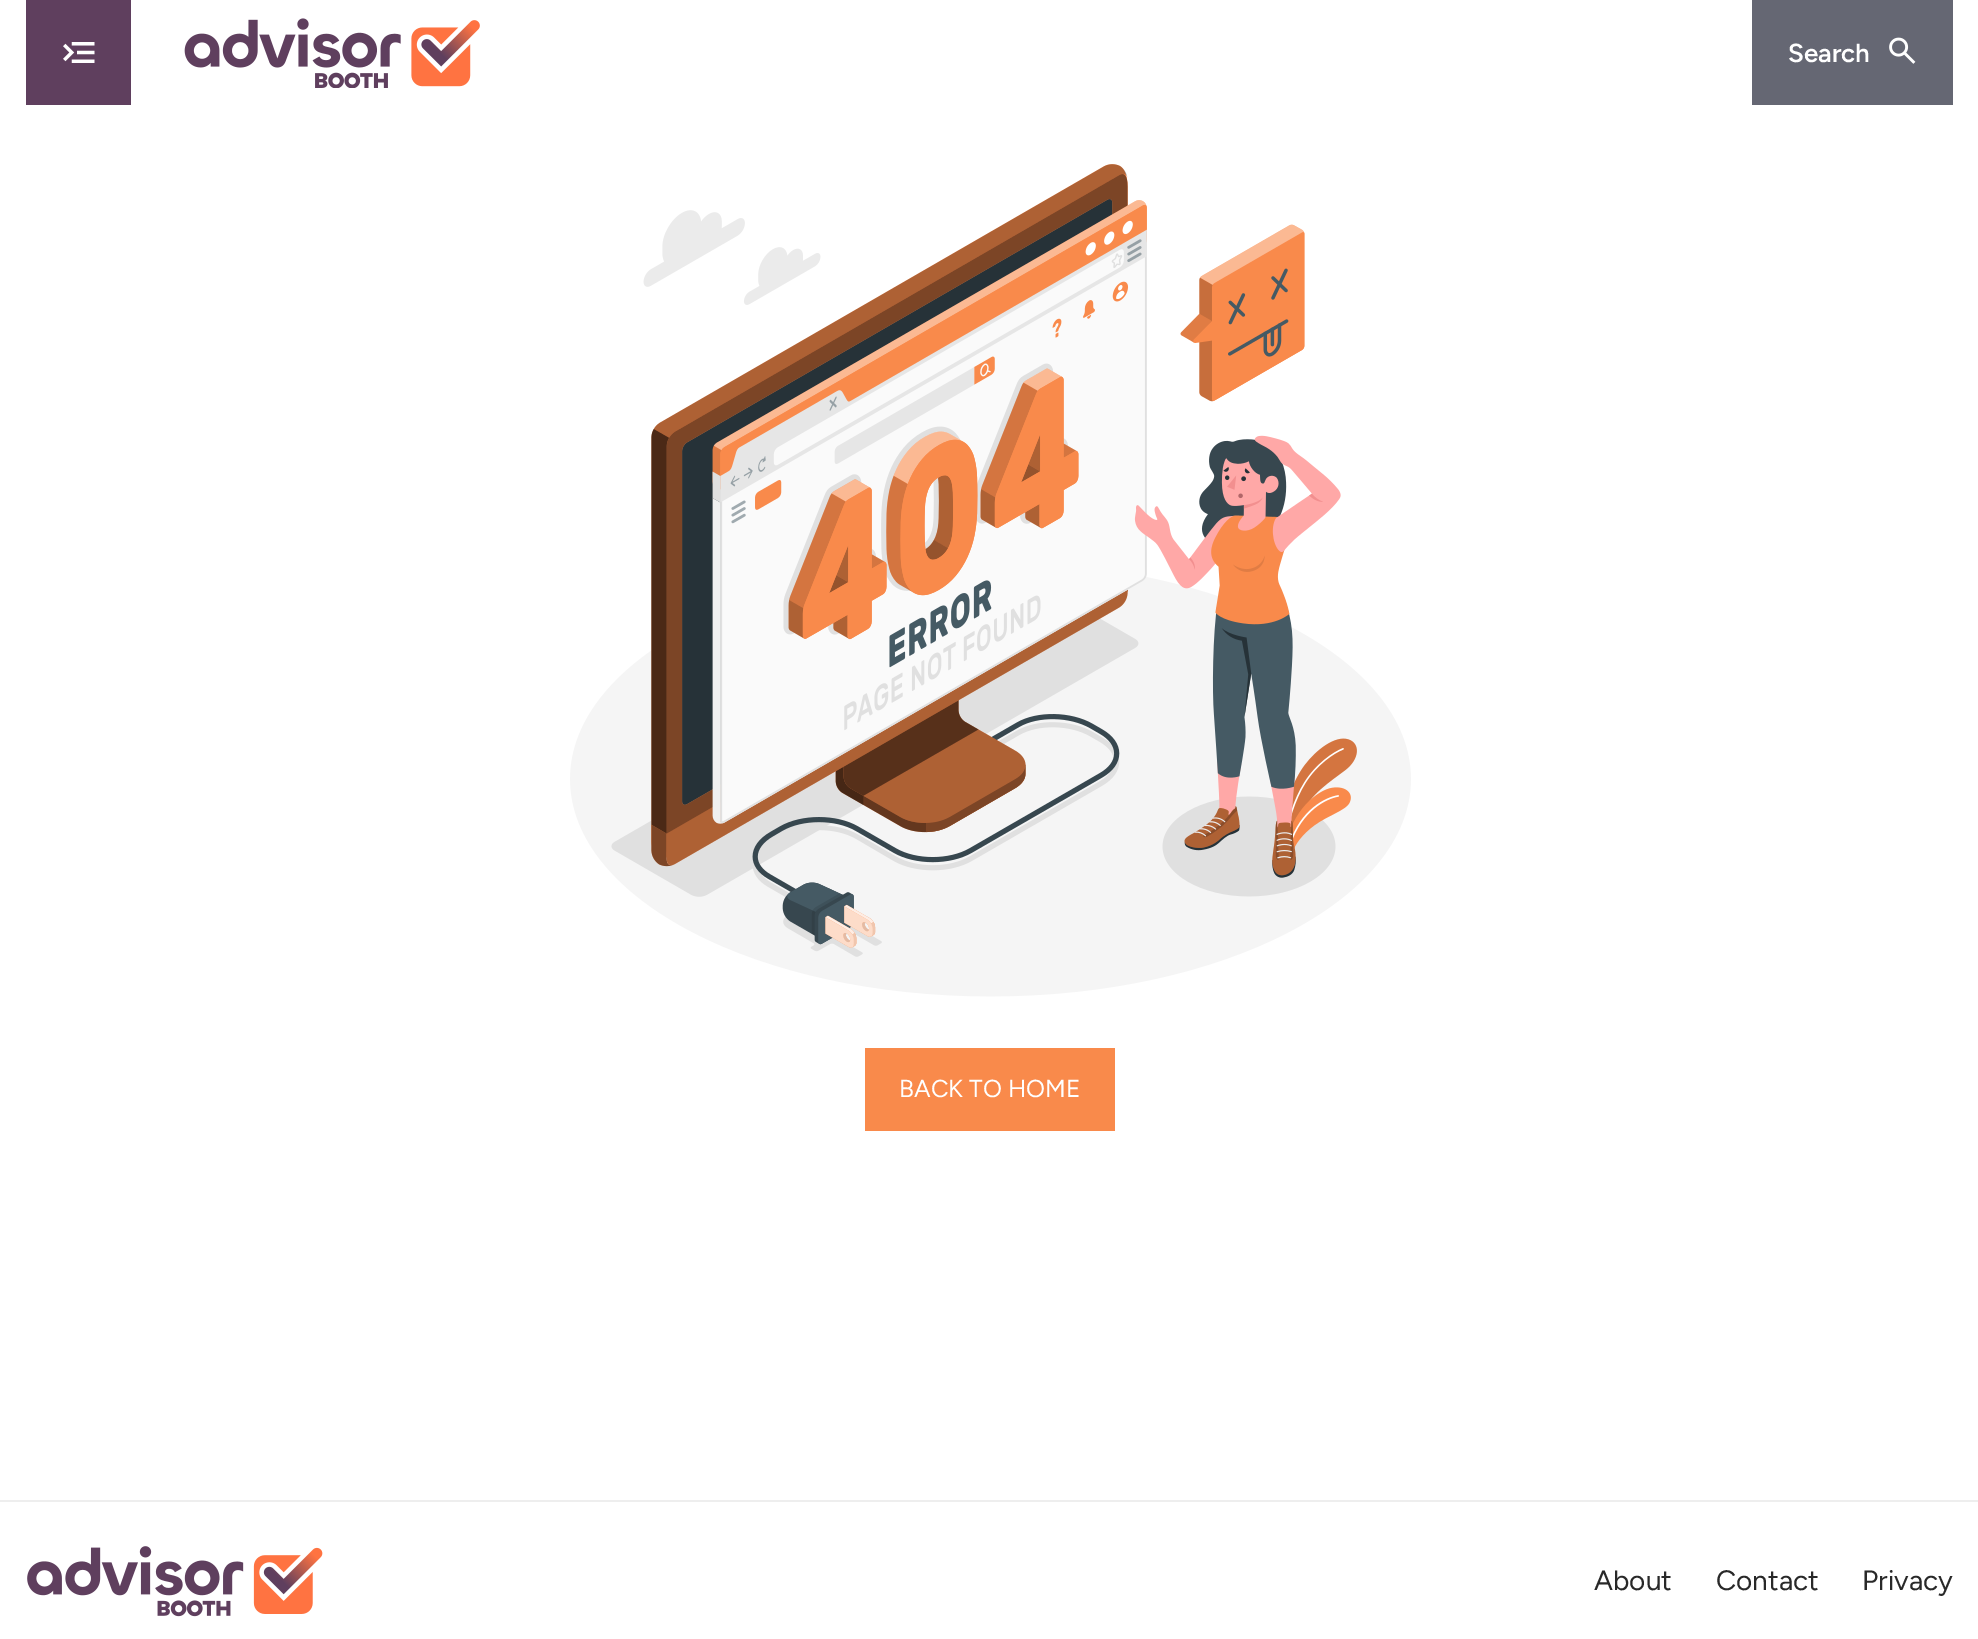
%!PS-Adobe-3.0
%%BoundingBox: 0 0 1978 1639
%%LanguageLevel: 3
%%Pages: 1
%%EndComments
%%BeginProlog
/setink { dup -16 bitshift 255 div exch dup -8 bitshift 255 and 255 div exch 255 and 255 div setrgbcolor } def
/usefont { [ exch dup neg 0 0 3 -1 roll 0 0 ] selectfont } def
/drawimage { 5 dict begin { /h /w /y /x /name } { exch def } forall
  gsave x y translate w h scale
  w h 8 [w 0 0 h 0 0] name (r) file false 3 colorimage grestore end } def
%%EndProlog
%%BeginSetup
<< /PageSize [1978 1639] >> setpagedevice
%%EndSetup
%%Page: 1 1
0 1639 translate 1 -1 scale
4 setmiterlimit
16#FFFFFF setink
0 0 1978 1639 rectfill
16#5F3F5E setink
26 0 105 105 rectfill
(img1.raw) 63 42 32 21 drawimage
(img2.raw) 184 18 296 70 drawimage
16#656773 setink
1752 0 201 105 rectfill
/Figtree-SemiBold 26 usefont
16#FFFFFF setink
1788 62 moveto (Search) show
(img3.raw) 1889 37 27 27 drawimage
(img4.raw) 570 164 841 833 drawimage
16#F98A4B setink
865 1048 250 83 rectfill
/Figtree-Regular 24.5 usefont
16#FFFFFF setink
899 1097 moveto (BACK TO HOME) show
16#EEEEEE setink
0 1500 1978 2 rectfill
(img5.raw) 27 1546 296 71 drawimage
/Figtree-Regular 28 usefont
16#292929 setink
[
    [(About) 1594 1590]
    [(Contact) 1716 1590]
    [(Privacy) 1862 1590]
] { aload pop moveto show } forall
showpage
%%EOF
